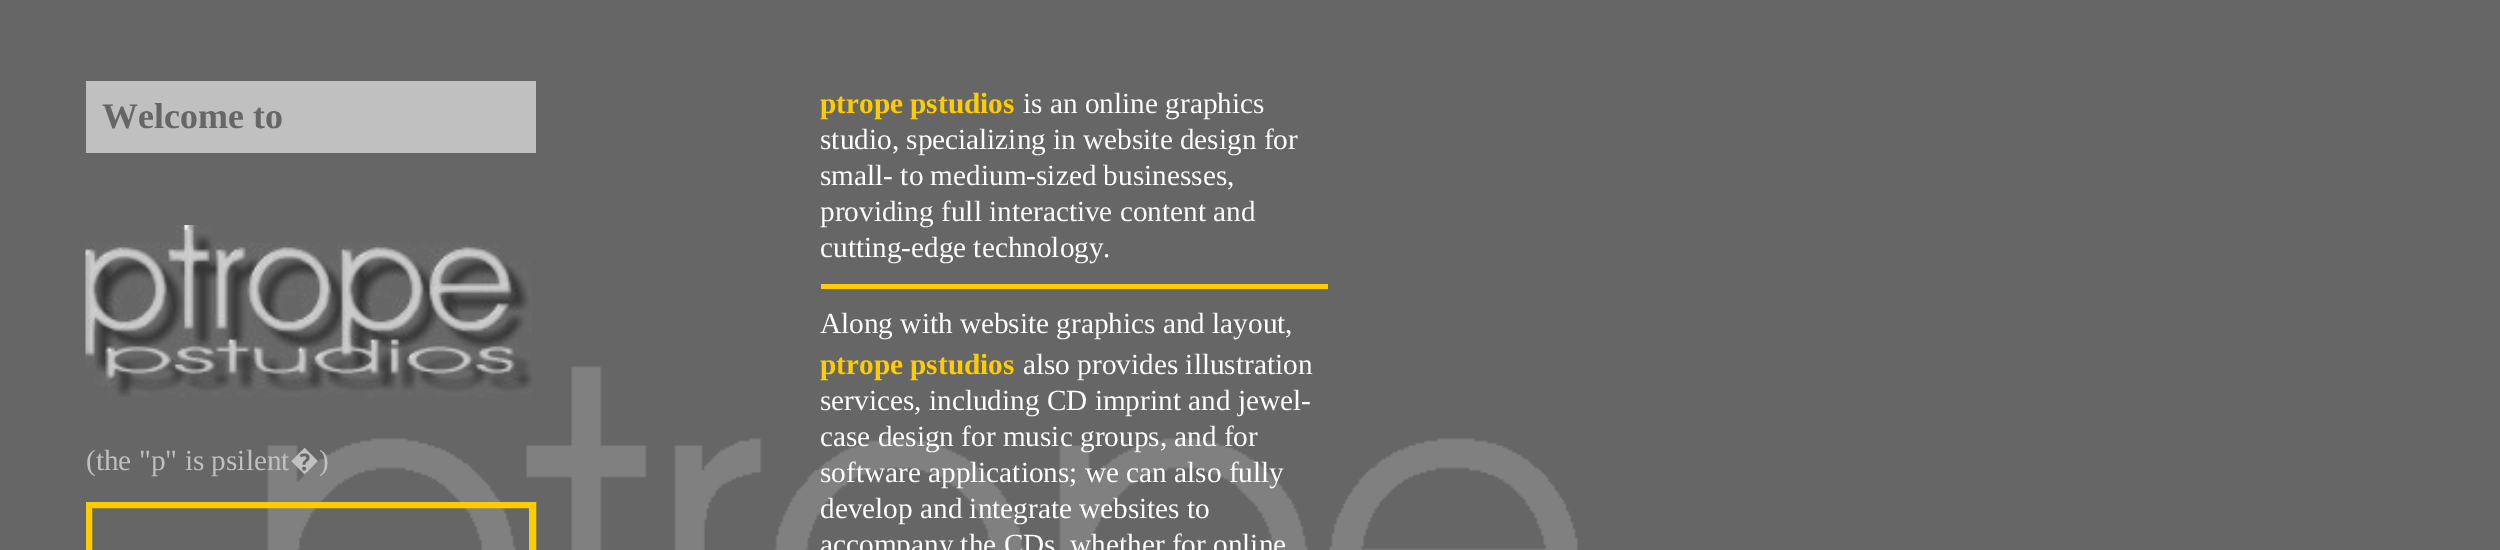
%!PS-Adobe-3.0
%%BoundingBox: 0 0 2500 550
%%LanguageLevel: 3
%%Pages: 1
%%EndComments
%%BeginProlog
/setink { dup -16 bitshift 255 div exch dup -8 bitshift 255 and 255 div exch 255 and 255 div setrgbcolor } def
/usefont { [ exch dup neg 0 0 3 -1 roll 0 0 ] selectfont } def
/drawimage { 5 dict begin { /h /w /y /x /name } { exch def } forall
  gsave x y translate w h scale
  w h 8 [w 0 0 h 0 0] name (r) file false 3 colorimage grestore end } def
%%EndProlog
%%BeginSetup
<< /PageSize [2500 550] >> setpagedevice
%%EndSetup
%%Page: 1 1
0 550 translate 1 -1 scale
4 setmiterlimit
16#666666 setink
0 0 2500 550 rectfill
16#C0C0C0 setink
86 81 450 72 rectfill
/LiberationSerif-Bold 36 usefont
16#666666 setink
102 128 moveto (Welcome to) show
(img2.raw) 267 366 1311 184 drawimage
(img1.raw) 85 225 447 172 drawimage
/LiberationSerif-Regular 29.25 usefont
16#C0C0C0 setink
86 470 moveto (\(the "p" is psilent) show
/NotoSans-Regular 29.25 usefont
290 470 moveto (�) show
/LiberationSerif-Regular 29.25 usefont
319 470 moveto (\)) show
/LiberationSerif-Bold 29.25 usefont
16#FFCC00 setink
820 113 moveto (ptrope pstudios) show
/LiberationSerif-Regular 29.25 usefont
16#FFFFFF setink
[
    [(is an online graphics) 1023 113]
    [(studio, specializing in website design for) 820 149]
    [(small- to medium-sized businesses,) 820 185]
    [(providing full interactive content and) 820 221]
    [(cutting-edge technology.) 820 257]
] { aload pop moveto show } forall
16#FFCC00 setink
821 284 507 5 rectfill
16#FFFFFF setink
820 333 moveto (Along with website graphics and layout,) show
/LiberationSerif-Bold 29.25 usefont
16#FFCC00 setink
820 374 moveto (ptrope pstudios) show
/LiberationSerif-Regular 29.25 usefont
16#FFFFFF setink
[
    [(also provides illustration) 1023 374]
    [(services, including CD imprint and jewel-) 820 410]
    [(case design for music groups, and for) 820 446]
    [(software applications; we can also fully) 820 482]
    [(develop and integrate websites to) 820 518]
    [(accompany the CDs, whether for online) 820 554]
] { aload pop moveto show } forall
16#FFCC00 setink
5 setlinewidth
88.5 504.5 445 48 rectstroke
2 setlinewidth
91 507 439 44 rectstroke
showpage
%%EOF
